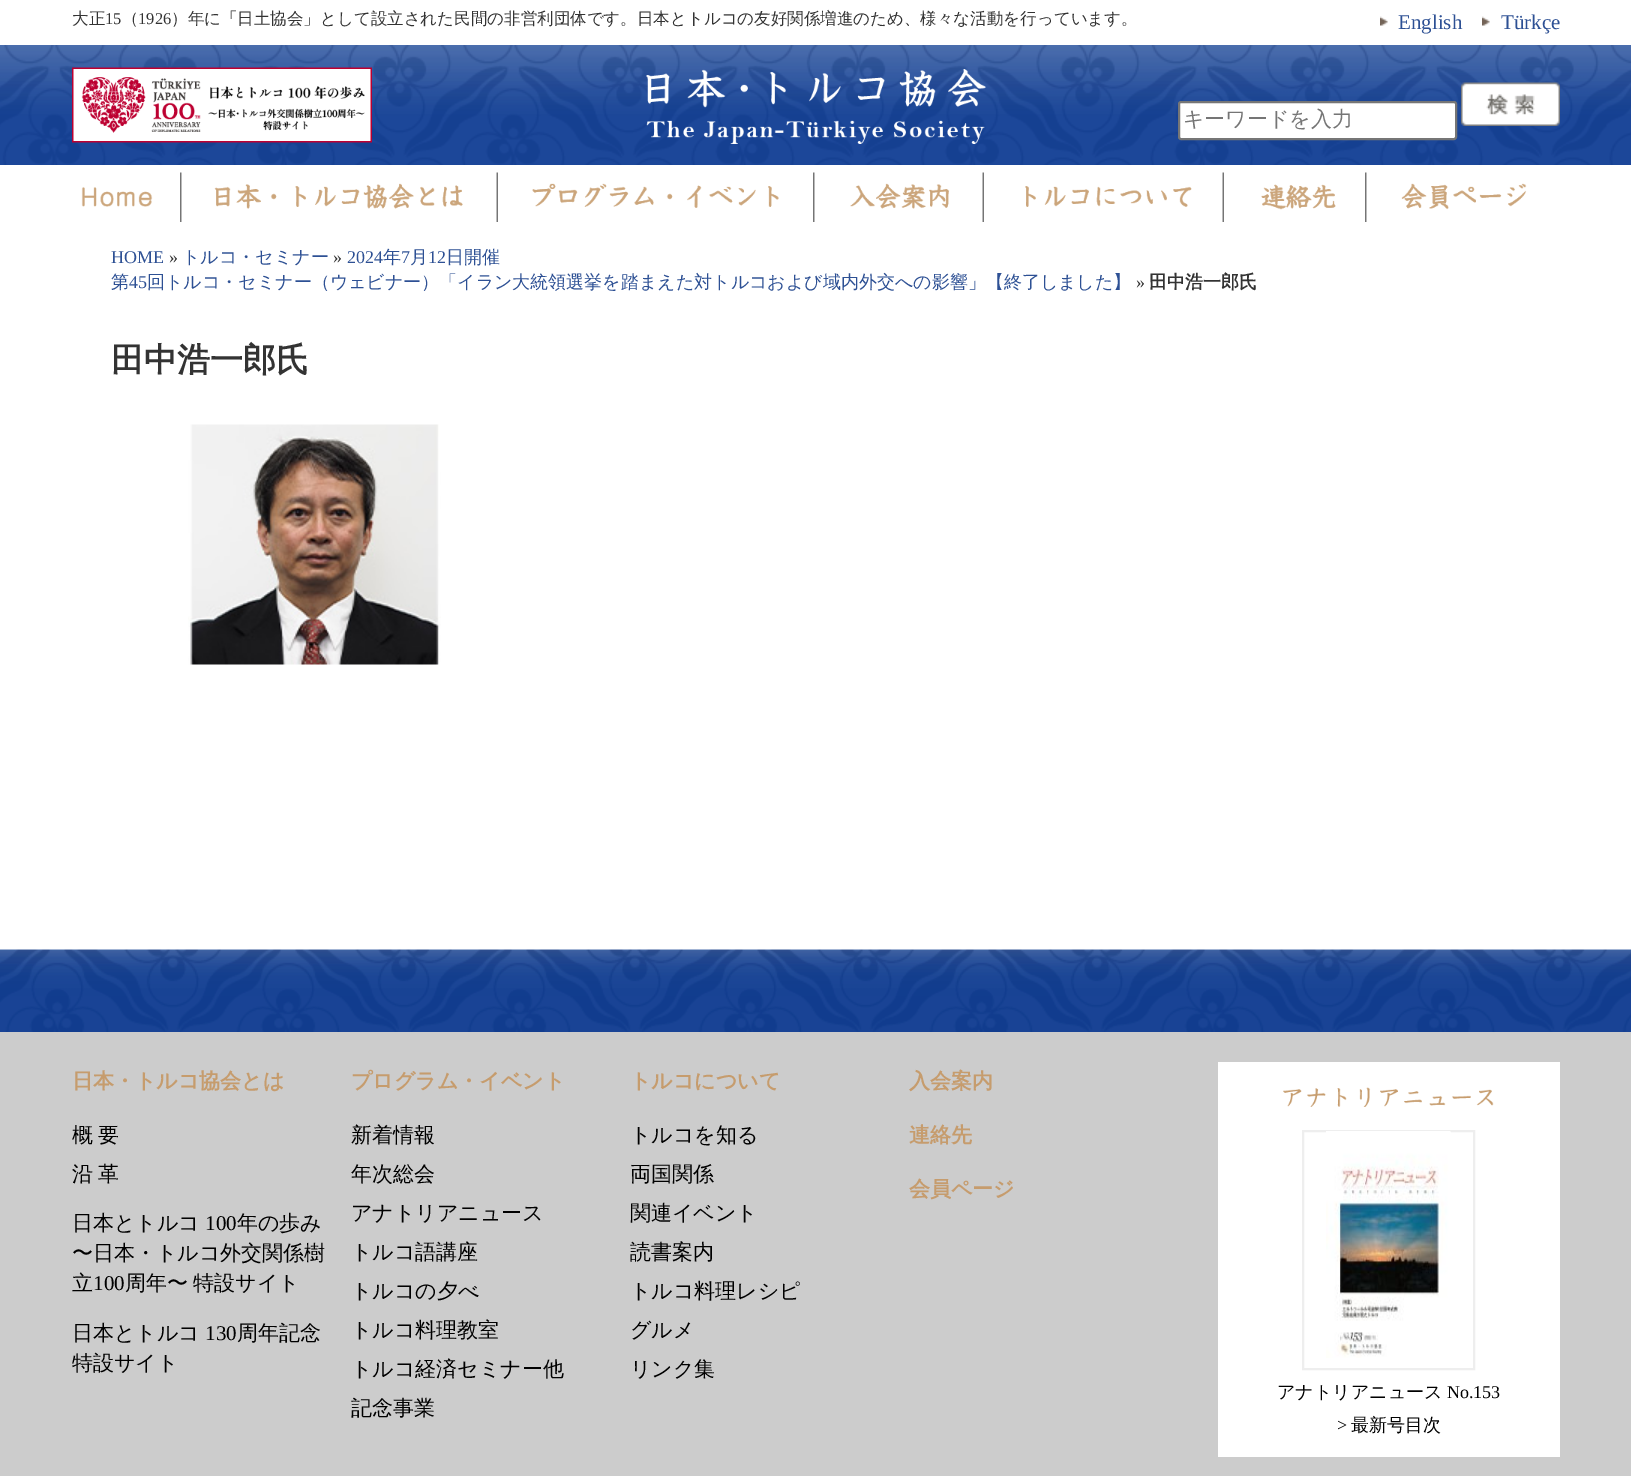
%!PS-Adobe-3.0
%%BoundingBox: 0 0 1631 1476
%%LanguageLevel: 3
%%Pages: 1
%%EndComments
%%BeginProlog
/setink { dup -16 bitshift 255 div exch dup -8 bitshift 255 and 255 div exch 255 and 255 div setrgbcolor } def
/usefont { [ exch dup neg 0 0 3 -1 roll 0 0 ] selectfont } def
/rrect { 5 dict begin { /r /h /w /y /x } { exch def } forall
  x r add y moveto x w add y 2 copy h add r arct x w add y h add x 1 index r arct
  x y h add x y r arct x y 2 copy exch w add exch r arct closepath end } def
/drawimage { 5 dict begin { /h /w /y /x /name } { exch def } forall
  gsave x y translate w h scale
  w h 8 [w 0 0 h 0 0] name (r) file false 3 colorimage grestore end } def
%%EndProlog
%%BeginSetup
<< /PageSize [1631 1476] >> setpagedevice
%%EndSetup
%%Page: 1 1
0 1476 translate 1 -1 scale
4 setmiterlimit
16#FFFFFF setink
0 0 1631 1476 rectfill
/WenQuanYiZenHei-Medium 16.5 usefont
16#333333 setink
72 24 moveto (大正) show
/LiberationSerif-Regular 16.5 usefont
105 24 moveto (15) show
/WenQuanYiZenHei-Medium 16.5 usefont
122 24 moveto (（) show
/LiberationSerif-Regular 16.5 usefont
138 24 moveto (1926) show
/WenQuanYiZenHei-Medium 16.5 usefont
171 24 moveto (）年に「日土協会」として設立された民間の非営利団体です。日本とトルコの友好関係増進のため、様々な活動を行っています。) show
(img1.raw) 1380 16 8 10 drawimage
/LiberationSerif-Regular 21 usefont
16#2D5094 setink
1398 29 moveto (English) show
(img2.raw) 1482 16 8 10 drawimage
1501 29 moveto (Türkçe) show
(img3.raw) 0 45 1631 120 drawimage
(img4.raw) 72 67 300 76 drawimage
(img5.raw) 646 69 340 75 drawimage
16#FFFFFF setink
1179 102 277 37 2 rrect gsave fill grestore
16#767676 setink
2 setlinewidth
stroke
/WenQuanYiZenHei-Medium 21 usefont
16#757575 setink
1183 126 moveto (キーワードを入力) show
(img6.raw) 1461 82 99 44 drawimage
(img7.raw) 81 172 101 50 drawimage
(img8.raw) 214 172 284 50 drawimage
(img9.raw) 532 172 283 50 drawimage
(img10.raw) 850 172 134 50 drawimage
(img11.raw) 1025 172 199 50 drawimage
(img12.raw) 1261 172 106 50 drawimage
(img13.raw) 1401 183 126 27 drawimage
/LiberationSerif-Regular 18 usefont
16#2D5094 setink
111 263 moveto (HOME) show
16#333333 setink
169 263 moveto (») show
/WenQuanYiZenHei-Medium 18 usefont
16#2D5094 setink
182 263 moveto (トルコ・セミナー) show
/LiberationSerif-Regular 18 usefont
16#333333 setink
333 263 moveto (») show
16#2D5094 setink
347 263 moveto (2024) show
/WenQuanYiZenHei-Medium 18 usefont
383 263 moveto (年) show
/LiberationSerif-Regular 18 usefont
401 263 moveto (7) show
/WenQuanYiZenHei-Medium 18 usefont
410 263 moveto (月) show
/LiberationSerif-Regular 18 usefont
428 263 moveto (12) show
/WenQuanYiZenHei-Medium 18 usefont
446 263 moveto (日開催) show
111 288 moveto (第) show
/LiberationSerif-Regular 18 usefont
129 288 moveto (45) show
/WenQuanYiZenHei-Medium 18 usefont
147 288 moveto (回トルコ・セミナー（ウェビナー）「イラン大統領選挙を踏まえた対トルコおよび域内外交への影響」【終了しました】) show
/LiberationSerif-Regular 18 usefont
16#333333 setink
1136 288 moveto (») show
/WenQuanYiZenHei-Bold 18 usefont
1149 288 moveto (田中浩一郎氏) show
/WenQuanYiZenHei-Bold 33 usefont
111 371 moveto (田中浩一郎氏) show
(img14.raw) 188 424 253 241 drawimage
16#CCCCCC setink
0 950 1631 526 rectfill
(img15.raw) 0 949 1631 83 drawimage
/WenQuanYiZenHei-Bold 21 usefont
16#C69C6D setink
72 1088 moveto (日本・トルコ協会とは) show
/WenQuanYiZenHei-Medium 21 usefont
16#000000 setink
72 1142 moveto -1 0 32 (概 要) widthshow
72 1181 moveto -1 0 32 (沿 革) widthshow
72 1230 moveto (日本とトルコ) show
/LiberationSerif-Regular 21 usefont
205 1230 moveto (100) show
/WenQuanYiZenHei-Medium 21 usefont
[
    [(年の歩み) 237 1230]
    [(〜日本・トルコ外交関係樹) 72 1260]
    [(立) 72 1290]
] { aload pop moveto show } forall
/LiberationSerif-Regular 21 usefont
93 1290 moveto (100) show
/WenQuanYiZenHei-Medium 21 usefont
125 1290 moveto -1 0 32 (周年〜 特設サイト) widthshow
72 1340 moveto (日本とトルコ) show
/LiberationSerif-Regular 21 usefont
205 1340 moveto (130) show
/WenQuanYiZenHei-Medium 21 usefont
237 1340 moveto (周年記念) show
72 1370 moveto (特設サイト) show
/WenQuanYiZenHei-Bold 21 usefont
16#C69C6D setink
351 1088 moveto (プログラム・イベント) show
/WenQuanYiZenHei-Medium 21 usefont
16#000000 setink
[
    [(新着情報) 351 1142]
    [(年次総会) 351 1181]
    [(アナトリアニュース) 351 1220]
    [(トルコ語講座) 351 1259]
    [(トルコの夕べ) 351 1298]
    [(トルコ料理教室) 351 1337]
    [(トルコ経済セミナー他) 351 1376]
    [(記念事業) 351 1415]
] { aload pop moveto show } forall
/WenQuanYiZenHei-Bold 21 usefont
16#C69C6D setink
630 1088 moveto (トルコについて) show
/WenQuanYiZenHei-Medium 21 usefont
16#000000 setink
[
    [(トルコを知る) 630 1142]
    [(両国関係) 630 1181]
    [(関連イベント) 630 1220]
    [(読書案内) 630 1259]
    [(トルコ料理レシピ) 630 1298]
    [(グルメ) 630 1337]
    [(リンク集) 630 1376]
] { aload pop moveto show } forall
/WenQuanYiZenHei-Bold 21 usefont
16#C69C6D setink
[
    [(入会案内) 909 1088]
    [(連絡先) 909 1142]
    [(会員ページ) 909 1196]
] { aload pop moveto show } forall
16#FFFFFF setink
1218 1062 342 395 rectfill
(img16.raw) 1283 1087 211 20 drawimage
16#EEEEEE setink
1303 1131 171 238 rectstroke
(img17.raw) 1326 1131 125 227 drawimage
/WenQuanYiZenHei-Medium 18 usefont
16#000000 setink
1277 1398 moveto (アナトリアニュース) show
/LiberationSerif-Regular 18 usefont
1447 1398 moveto (No.153) show
1337 1431 moveto (>) show
/WenQuanYiZenHei-Medium 18 usefont
1351 1431 moveto (最新号目次) show
showpage
%%EOF
